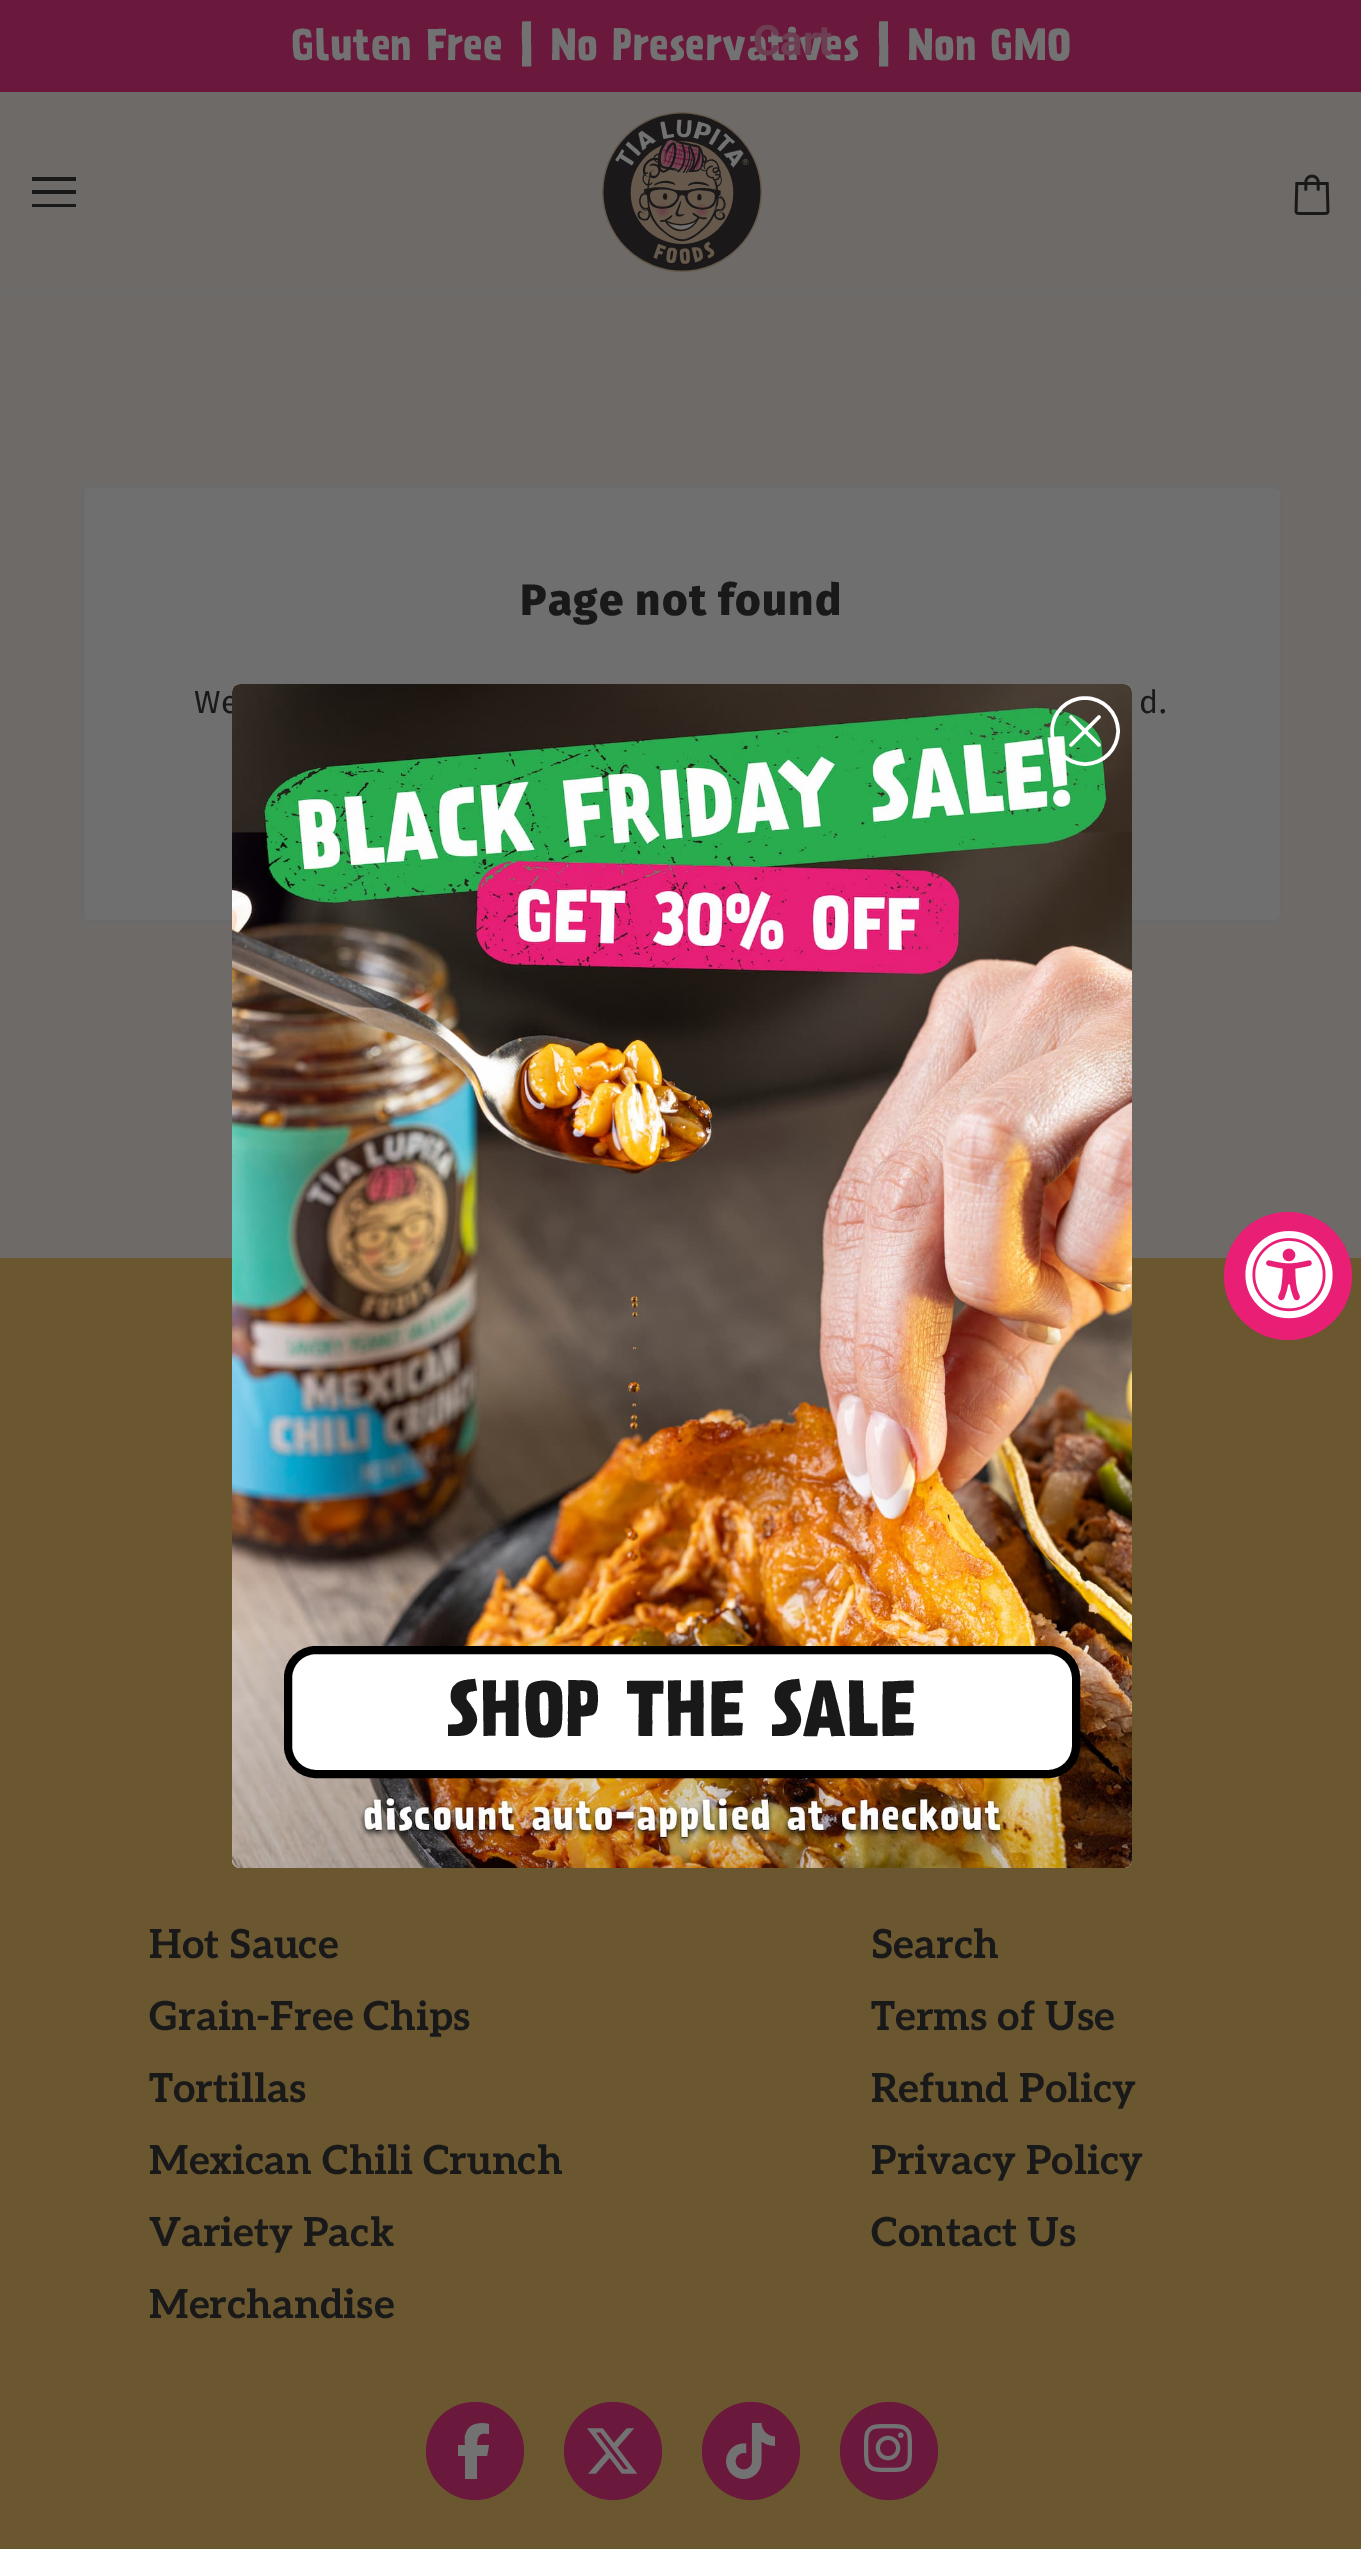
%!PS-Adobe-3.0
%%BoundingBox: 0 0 1361 2549
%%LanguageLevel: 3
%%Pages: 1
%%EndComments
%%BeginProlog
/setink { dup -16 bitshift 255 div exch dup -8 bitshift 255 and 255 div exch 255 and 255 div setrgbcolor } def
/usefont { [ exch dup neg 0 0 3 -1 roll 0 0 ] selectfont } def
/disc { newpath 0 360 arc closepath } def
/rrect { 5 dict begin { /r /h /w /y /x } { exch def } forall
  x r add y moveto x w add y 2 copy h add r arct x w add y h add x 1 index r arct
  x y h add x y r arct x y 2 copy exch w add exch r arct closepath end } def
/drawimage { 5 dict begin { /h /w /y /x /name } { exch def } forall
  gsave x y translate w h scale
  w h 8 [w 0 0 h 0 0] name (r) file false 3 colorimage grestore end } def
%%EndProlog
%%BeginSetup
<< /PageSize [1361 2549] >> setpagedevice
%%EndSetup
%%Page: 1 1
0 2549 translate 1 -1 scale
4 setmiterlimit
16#6E6A67 setink
0 0 1361 2549 rectfill
16#6A183B setink
0 0 1361 92 rectfill
/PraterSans-Bold 40 usefont
16#727272 setink
291 60 moveto (Gluten Free | No Preservatives | Non GMO) show
16#6A6A6A setink
0 292 1361 2 rectfill
16#191919 setink
32 181 moveto 32 177 lineto 76 177 lineto 76 181 lineto closepath 32 194 moveto 32 190 lineto 76 190 lineto 76 194 lineto closepath 32 207 moveto 32 204 lineto 76 204 lineto 76 207 lineto closepath fill
(img1.raw) 602 112 160 160 drawimage
(img2.raw) 1294 174 36 41 drawimage
16#6F6F6F setink
83 487 1198 434 5 rrect gsave fill grestore
16#6A6A6A setink
2 setlinewidth
stroke
/FiraSans-ExtraBold 44 usefont
16#191919 setink
520 615 moveto 1.1 0 (Page not found) ashow
/FiraSans-Regular 32 usefont
194 713 moveto 1 0 (We) ashow
1139 713 moveto 1 0 (d.) ashow
16#6A562F setink
0 1258 1361 1291 rectfill
/Aleo-Bold 40 usefont
16#191919 setink
[
    [(Hot Sauce) 149 1958]
    [(Grain-Free Chips) 149 2030]
    [(Tortillas) 149 2102]
    [(Mexican Chili Crunch) 149 2174]
    [(Variety Pack) 149 2246]
    [(Merchandise) 149 2318]
    [(Search) 871 1958]
    [(Terms of Use) 871 2030]
    [(Refund Policy) 871 2102]
    [(Privacy Policy) 871 2174]
    [(Contact Us) 871 2246]
] { aload pop moveto show } forall
16#6A183B setink
475 2451 49 disc fill
16#727272 setink
465 2456 moveto 465 2479 lineto 465 2456 lineto 465 2479 lineto 477 2479 lineto 477 2456 lineto 487 2456 lineto 489 2445 lineto 477 2445 lineto 477 2436 479 2432 489 2434 curveto 489 2424 lineto 481 2422 469 2423 466 2433 curveto 464 2437 465 2441 465 2445 curveto 458 2445 lineto 458 2456 lineto closepath fill
16#6A183B setink
613 2451 49 disc fill
(img3.raw) 587 2428 51 46 drawimage
751 2451 49 disc fill
(img4.raw) 726 2423 49 56 drawimage
889 2451 49 disc fill
(img5.raw) 864 2424 48 48 drawimage
/Roboto-Bold 42 usefont
16#6D3D52 setink
753 55 moveto (Cart) show
16#E81F75 setink
1288 1276 64 disc fill
(img6.raw) 1245 1231 88 88 drawimage
16#FFFFFF setink
232 684 900 1184 8 rrect fill
(img7.raw) 232 684 900 1184 drawimage
3.5 setlinewidth
1085 731 33 disc stroke
1 setlinecap
1 setlinejoin
1071 717 moveto 1099 745 lineto 1071 745 moveto 1099 717 lineto closepath stroke
288 1650 788 124 28 rrect gsave fill grestore
16#000000 setink
8 setlinewidth
0 setlinecap
0 setlinejoin
stroke
/PraterSans-Bold 70 usefont
16#191919 setink
446 1736 moveto (SHOP THE SALE) show
showpage
%%EOF
